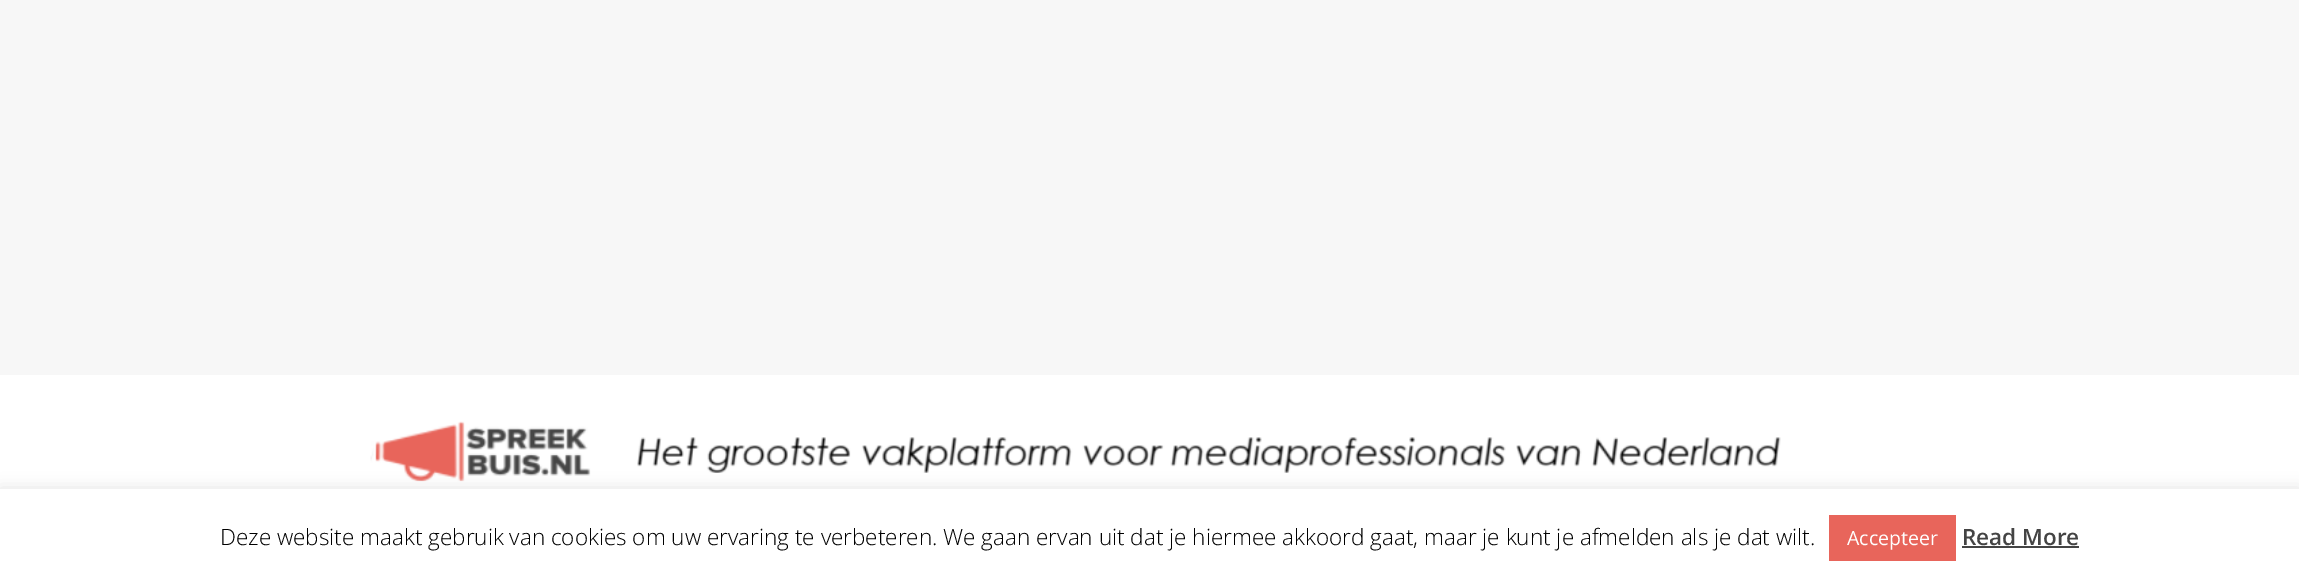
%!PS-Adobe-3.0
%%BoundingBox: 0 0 2299 579
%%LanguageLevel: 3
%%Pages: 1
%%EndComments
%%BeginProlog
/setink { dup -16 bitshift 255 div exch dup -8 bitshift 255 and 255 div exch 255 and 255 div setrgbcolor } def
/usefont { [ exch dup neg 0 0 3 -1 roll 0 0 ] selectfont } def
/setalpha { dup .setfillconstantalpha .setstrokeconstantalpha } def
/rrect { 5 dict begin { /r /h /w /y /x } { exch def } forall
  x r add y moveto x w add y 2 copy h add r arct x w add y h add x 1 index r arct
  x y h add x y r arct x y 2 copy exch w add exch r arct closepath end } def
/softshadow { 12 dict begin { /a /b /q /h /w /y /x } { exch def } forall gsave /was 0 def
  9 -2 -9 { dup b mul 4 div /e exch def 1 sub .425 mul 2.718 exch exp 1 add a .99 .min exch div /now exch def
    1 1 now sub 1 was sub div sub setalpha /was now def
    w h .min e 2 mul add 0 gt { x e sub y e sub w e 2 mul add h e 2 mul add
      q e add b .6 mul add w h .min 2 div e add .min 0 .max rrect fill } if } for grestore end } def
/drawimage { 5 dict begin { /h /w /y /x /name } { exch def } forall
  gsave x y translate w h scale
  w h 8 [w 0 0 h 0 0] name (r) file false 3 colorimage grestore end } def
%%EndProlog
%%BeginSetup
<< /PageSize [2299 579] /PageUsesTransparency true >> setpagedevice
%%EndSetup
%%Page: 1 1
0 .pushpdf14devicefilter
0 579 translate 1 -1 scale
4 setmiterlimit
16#F7F7F7 setink
0 0 2299 579 rectfill
16#FFFFFF setink
0 375 2299 114 rectfill
(img1.raw) 370 421 1411 61 drawimage
16#ACABAB setink
0 488 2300 90 0 7.5 0.3 softshadow
16#FFFFFF setink
0 489 2299 90 rectfill
/OpenSans-Light 22.5 usefont
16#000000 setink
220 545 moveto (Deze website maakt gebruik van cookies om uw ervaring te verbeteren. We gaan ervan uit dat je hiermee akkoord gaat, maar je kunt je afmelden als je dat wilt.) show
16#E8655B setink
1829 515 127 46 rectfill
/OpenSans-Regular 19.5 usefont
16#FFFFFF setink
1847 545 moveto (Accepteer) show
/OpenSans-SemiBold 22.5 usefont
16#444444 setink
1962 545 moveto (Read More) show
1962 546 117 2 rectfill
.poppdf14devicefilter showpage
%%EOF
